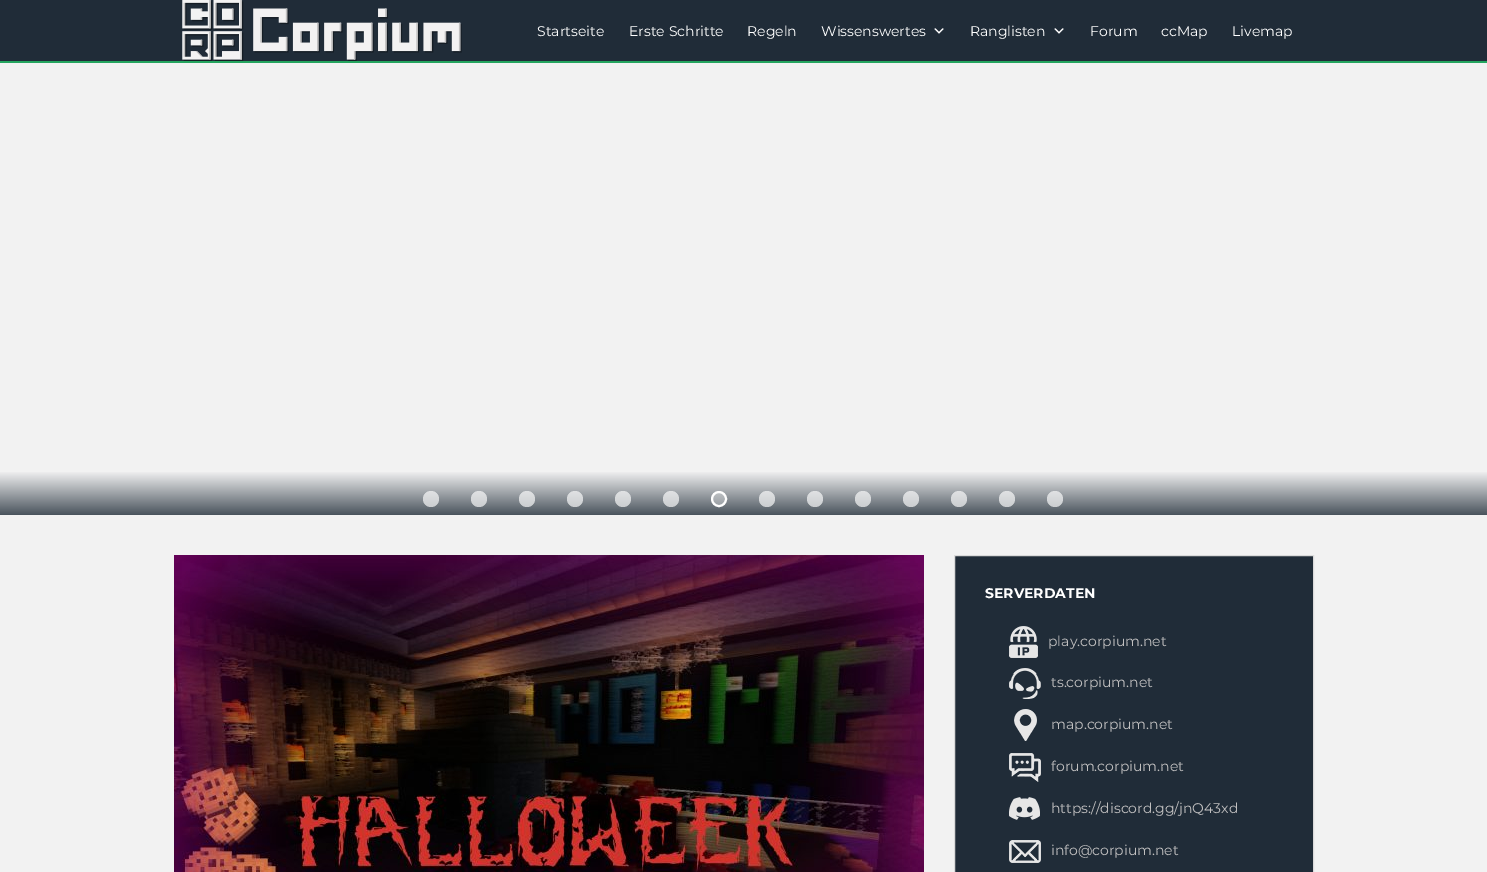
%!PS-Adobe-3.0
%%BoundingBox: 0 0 1487 872
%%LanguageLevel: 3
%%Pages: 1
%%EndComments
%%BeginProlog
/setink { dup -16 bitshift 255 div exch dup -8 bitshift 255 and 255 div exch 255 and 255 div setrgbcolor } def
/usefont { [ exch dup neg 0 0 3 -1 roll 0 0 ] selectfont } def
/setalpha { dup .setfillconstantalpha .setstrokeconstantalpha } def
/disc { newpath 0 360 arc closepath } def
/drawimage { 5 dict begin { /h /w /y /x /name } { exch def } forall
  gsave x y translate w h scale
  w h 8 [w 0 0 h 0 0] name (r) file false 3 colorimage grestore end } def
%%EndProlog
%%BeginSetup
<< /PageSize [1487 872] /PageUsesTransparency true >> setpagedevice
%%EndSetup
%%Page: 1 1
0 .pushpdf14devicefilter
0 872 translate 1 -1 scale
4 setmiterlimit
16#F2F2F2 setink
0 0 1487 872 rectfill
16#202C38 setink
0 0 1487 61 rectfill
16#25A55F setink
0 61 1487 2 rectfill
(img1.raw) 182 0 280 61 drawimage
/Montserrat-Regular 14 usefont
16#FFFFFF setink
[
    [(Startseite) 537 36]
    [(Erste Schritte) 629 36]
    [(Regeln) 747 36]
    [(Wissenswertes) 821 36]
] { aload pop moveto show } forall
(img2.raw) 934 28 10 6 drawimage
970 36 moveto (Ranglisten) show
(img2.raw) 1054 28 10 6 drawimage
[
    [(Forum) 1090 36]
    [(ccMap) 1161 36]
    [(Livemap) 1232 36]
] { aload pop moveto show } forall
gsave 0 472 moveto 1487 472 lineto 1487 515 lineto 0 515 lineto closepath clip newpath
<< /ShadingType 2 /ColorSpace /DeviceRGB /Coords [744 471 744 515] /Extend [true true] /Function << /FunctionType 2 /Domain [0 1] /C0 [0.949 0.949 0.949] /C1 [0.29 0.329 0.365] /N 1 >> >> shfill grestore
0.3 setalpha
431 499 8 disc fill
0.5 setalpha
431 499 8 disc fill
0.3 setalpha
479 499 8 disc fill
0.5 setalpha
479 499 8 disc fill
0.3 setalpha
527 499 8 disc fill
0.5 setalpha
527 499 8 disc fill
0.3 setalpha
575 499 8 disc fill
0.5 setalpha
575 499 8 disc fill
0.3 setalpha
623 499 8 disc fill
0.5 setalpha
623 499 8 disc fill
0.3 setalpha
671 499 8 disc fill
0.5 setalpha
671 499 8 disc fill
0.3 setalpha
719 499 7 disc fill
1 setalpha
2 setlinewidth
719 499 7 disc stroke
0.3 setalpha
767 499 8 disc fill
0.5 setalpha
767 499 8 disc fill
0.3 setalpha
815 499 8 disc fill
0.5 setalpha
815 499 8 disc fill
0.3 setalpha
863 499 8 disc fill
0.5 setalpha
863 499 8 disc fill
0.3 setalpha
911 499 8 disc fill
0.5 setalpha
911 499 8 disc fill
0.3 setalpha
959 499 8 disc fill
0.5 setalpha
959 499 8 disc fill
0.3 setalpha
1007 499 8 disc fill
0.5 setalpha
1007 499 8 disc fill
0.3 setalpha
1055 499 8 disc fill
0.5 setalpha
1055 499 8 disc fill
1 setalpha
(img3.raw) 174 555 750 317 drawimage
16#202C38 setink
955 557 358 315 rectfill
16#1E2A35 setink
955 556 358 1 rectfill
16#DADADA setink
1 setlinewidth
954.5 555.5 359 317 rectstroke
/Montserrat-Bold 14 usefont
16#FFFFFF setink
985 598 moveto (SERVERDATEN) show
(img4.raw) 1009 626 29 32 drawimage
/Montserrat-Regular 14 usefont
16#C1C0C0 setink
1048 646 moveto (play.corpium.net) show
(img5.raw) 1009 668 32 31 drawimage
1051 687 moveto (ts.corpium.net) show
(img6.raw) 1014 709 23 32 drawimage
1051 729 moveto (map.corpium.net) show
(img7.raw) 1009 753 32 29 drawimage
1051 771 moveto (forum.corpium.net) show
(img8.raw) 1009 797 31 23 drawimage
1051 813 moveto (https://discord.gg/jnQ43xd) show
(img9.raw) 1009 840 32 23 drawimage
1051 855 moveto (info@corpium.net) show
.poppdf14devicefilter showpage
%%EOF
